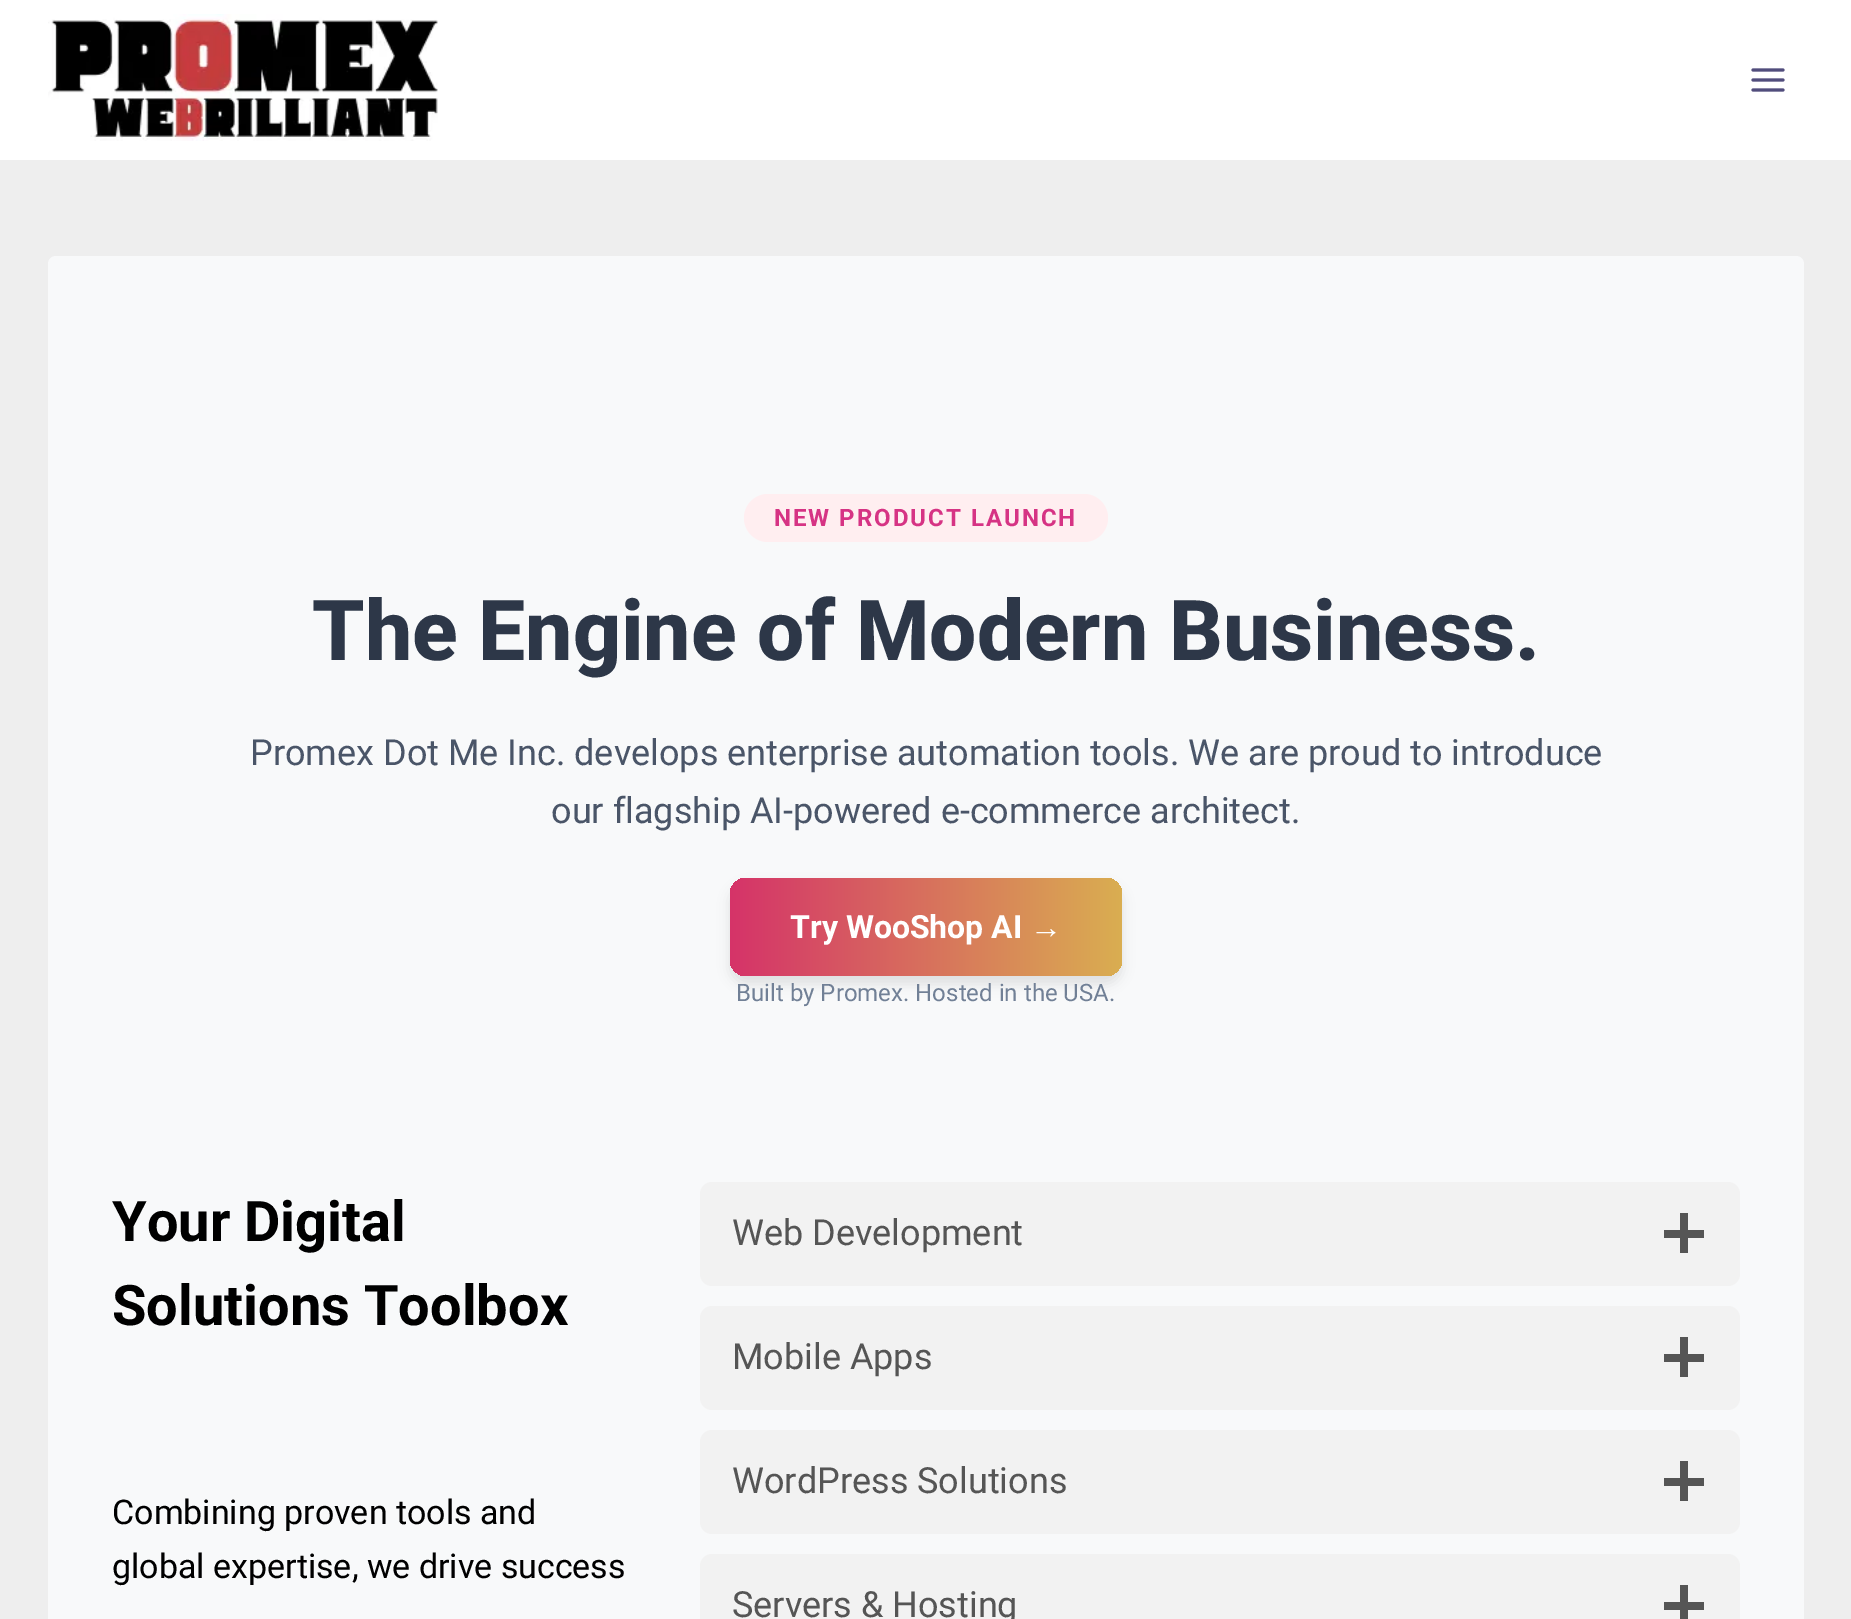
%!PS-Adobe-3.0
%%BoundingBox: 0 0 1851 1619
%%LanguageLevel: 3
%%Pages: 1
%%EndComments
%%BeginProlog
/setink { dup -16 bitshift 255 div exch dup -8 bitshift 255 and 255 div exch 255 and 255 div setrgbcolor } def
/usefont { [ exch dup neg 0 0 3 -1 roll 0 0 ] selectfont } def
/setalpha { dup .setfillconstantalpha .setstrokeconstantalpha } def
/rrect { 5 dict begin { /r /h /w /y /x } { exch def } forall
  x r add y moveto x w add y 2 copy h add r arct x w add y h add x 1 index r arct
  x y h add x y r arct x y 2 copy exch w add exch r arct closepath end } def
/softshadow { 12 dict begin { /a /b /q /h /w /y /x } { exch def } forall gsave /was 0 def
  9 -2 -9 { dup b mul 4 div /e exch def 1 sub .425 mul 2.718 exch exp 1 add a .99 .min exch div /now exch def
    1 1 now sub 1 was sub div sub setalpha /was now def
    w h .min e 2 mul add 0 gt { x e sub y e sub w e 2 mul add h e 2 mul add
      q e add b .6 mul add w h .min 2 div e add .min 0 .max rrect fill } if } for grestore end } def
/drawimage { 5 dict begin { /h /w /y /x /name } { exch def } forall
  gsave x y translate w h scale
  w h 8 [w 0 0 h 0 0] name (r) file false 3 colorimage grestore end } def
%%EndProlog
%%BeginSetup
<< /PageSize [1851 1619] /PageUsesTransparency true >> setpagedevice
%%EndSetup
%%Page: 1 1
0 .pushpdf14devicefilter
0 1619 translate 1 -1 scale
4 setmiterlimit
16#EEEEEE setink
0 0 1851 1619 rectfill
16#FFFFFF setink
0 0 1851 160 rectfill
(img1.raw) 48 14 390 127 drawimage
(img2.raw) 1751 68 34 24 drawimage
16#F8F9FA setink
48 256 1756 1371 8 rrect fill
16#FFEEF0 setink
744 494 364 48 24 rrect fill
/Roboto-Bold 24 usefont
16#D63384 setink
774 526 moveto 2 0 (NEW PRODUCT LAUNCH) ashow
/Roboto-ExtraBold 84 usefont
16#2D3748 setink
312 660 moveto (The Engine of Modern Business.) show
/Roboto-Regular 36 usefont
16#4A5568 setink
250 765 moveto (Promex Dot Me Inc. develops enterprise automation tools. We are proud to introduce) show
551 823 moveto (our flagship AI-powered e-commerce architect.) show
16#000000 setink
730 886 392 98 16 6 0.1 softshadow
gsave 730 878 392 98 16 rrect clip newpath
<< /ShadingType 2 /ColorSpace /DeviceRGB /Coords [730 927 1122 927] /Extend [true true] /Function << /FunctionType 2 /Domain [0 1] /C0 [0.835 0.2 0.412] /C1 [0.855 0.682 0.318] /N 1 >> >> shfill grestore
/Roboto-Bold 32 usefont
16#FFFFFF setink
790 938 moveto (Try WooShop AI) show
/LiberationSans-Bold 32 usefont
1030 938 moveto (→) show
/Roboto-Regular 24 usefont
16#718096 setink
736 1001 moveto (Built by Promex. Hosted in the USA.) show
/Roboto-Bold 56 usefont
16#000000 setink
112 1241 moveto (Your Digital) show
112 1325 moveto (Solutions Toolbox) show
/Roboto-Regular 34 usefont
112 1524 moveto (Combining proven tools and) show
112 1578 moveto (global expertise, we drive success) show
16#F2F2F2 setink
700 1182 1040 104 12 rrect fill
/Roboto-Regular 36 usefont
16#555555 setink
732 1245 moveto (Web Development) show
1680 1213 8 40 rectfill
1664 1230 40 8 rectfill
16#F2F2F2 setink
700 1306 1040 104 12 rrect fill
16#555555 setink
732 1369 moveto (Mobile Apps) show
1680 1337 8 40 rectfill
1664 1354 40 8 rectfill
16#F2F2F2 setink
700 1430 1040 104 12 rrect fill
16#555555 setink
732 1493 moveto (WordPress Solutions) show
1680 1461 8 40 rectfill
1664 1478 40 8 rectfill
16#F2F2F2 setink
700 1554 1040 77 12 rrect fill
16#555555 setink
732 1617 moveto (Servers & Hosting) show
1680 1585 8 34 rectfill
1664 1602 40 8 rectfill
.poppdf14devicefilter showpage
%%EOF
